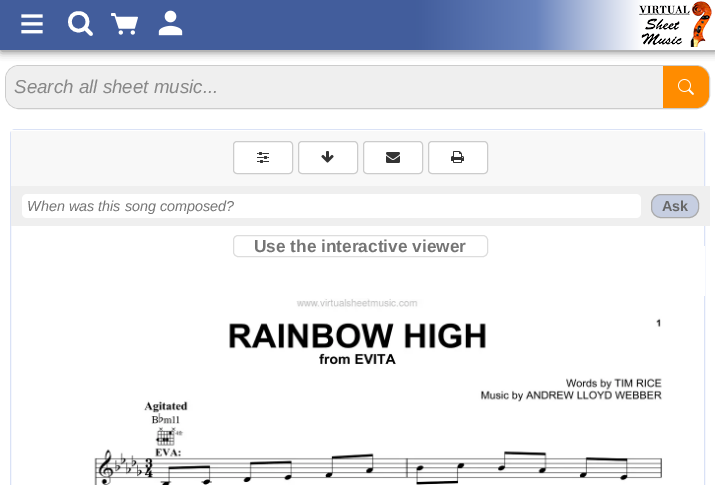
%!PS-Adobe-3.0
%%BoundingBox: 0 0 715 485
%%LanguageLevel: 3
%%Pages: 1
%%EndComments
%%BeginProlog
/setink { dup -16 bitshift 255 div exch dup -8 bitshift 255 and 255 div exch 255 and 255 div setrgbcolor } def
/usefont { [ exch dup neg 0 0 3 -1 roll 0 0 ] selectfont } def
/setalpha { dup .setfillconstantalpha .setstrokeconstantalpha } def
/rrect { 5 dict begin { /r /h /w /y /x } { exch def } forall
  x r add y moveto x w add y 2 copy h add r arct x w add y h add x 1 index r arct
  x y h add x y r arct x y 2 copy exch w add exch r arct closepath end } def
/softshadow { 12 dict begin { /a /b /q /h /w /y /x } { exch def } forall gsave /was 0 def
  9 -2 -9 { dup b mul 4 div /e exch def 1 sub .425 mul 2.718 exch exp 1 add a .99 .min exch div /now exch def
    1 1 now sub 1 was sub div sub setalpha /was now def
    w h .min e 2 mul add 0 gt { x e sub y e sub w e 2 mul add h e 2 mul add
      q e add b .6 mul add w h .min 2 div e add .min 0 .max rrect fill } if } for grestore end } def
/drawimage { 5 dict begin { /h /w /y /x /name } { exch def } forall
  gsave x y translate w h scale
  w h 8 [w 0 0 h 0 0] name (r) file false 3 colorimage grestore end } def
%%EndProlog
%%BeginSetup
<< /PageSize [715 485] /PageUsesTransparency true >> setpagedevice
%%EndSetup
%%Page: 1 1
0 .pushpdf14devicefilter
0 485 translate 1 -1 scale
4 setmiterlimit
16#FFFFFF setink
0 0 715 485 rectfill
16#CCCCCC setink
5.5 65.5 704 43 13.5 rrect stroke
16#666666 setink
1 1 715 50 0 4.5 1 softshadow
gsave 0 0 moveto 715 0 lineto 715 50 lineto 0 50 lineto closepath clip newpath
<< /ShadingType 2 /ColorSpace /DeviceRGB /Coords [715 25 0 25] /Extend [true true] /Function << /FunctionType 3 /Domain [0 1] /Functions [<< /FunctionType 2 /Domain [0 1] /C0 [1 1 1] /C1 [1 1 1] /N 1 >> << /FunctionType 2 /Domain [0 1] /C0 [1 1 1] /C1 [0.408 0.514 0.741] /N 1 >> << /FunctionType 2 /Domain [0 1] /C0 [0.408 0.514 0.741] /C1 [0.259 0.365 0.612] /N 1 >> << /FunctionType 2 /Domain [0 1] /C0 [0.259 0.365 0.612] /C1 [0.259 0.365 0.612] /N 1 >>] /Bounds [0.1 0.25 0.42] /Encode [0 1 0 1 0 1 0 1] >> >> shfill grestore
(img1.raw) 21 14 22 20 drawimage
16#FFFFFF setink
3.6 setlinewidth
1 setlinecap
78.5 30.5 moveto 90.5 30.5 90.5 13 78.5 13 curveto 67 13 67 30.5 78.5 30.5 curveto closepath 85.5 28.5 moveto 91 34 lineto stroke
(img2.raw) 111 13 27 22 drawimage
(img3.raw) 158 10 25 26 drawimage
(img4.raw) 639 1 73 46 drawimage
16#EFEFEF setink
19 66 moveto 663 66 lineto 663 108 lineto 19 108 lineto 12 108 6 102 6 95 curveto 6 79 lineto 6 72 12 66 19 66 curveto closepath fill
/LiberationSans-Italic 18.75 usefont
16#888888 setink
14 93 moveto (Search all sheet music...) show
16#FF8C00 setink
663 66 moveto 696 66 lineto 703 66 709 72 709 79 curveto 709 95 lineto 709 102 703 108 696 108 curveto 663 108 lineto closepath fill
(img5.raw) 678 79 16 16 drawimage
16#DAE2F6 setink
1 setlinewidth
0 setlinecap
10.5 129.5 694 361 4.5 rrect stroke
16#FFFFFF setink
11 130 693 3 rectfill
16#F8F8F8 setink
11 131 693 55 rectfill
16#FFFFFF setink
233.5 141.5 59 32 3.5 rrect gsave fill grestore
16#CCCCCC setink
stroke
(img6.raw) 257 152 12 11 drawimage
16#FFFFFF setink
298.5 141.5 59 32 3.5 rrect gsave fill grestore
16#CCCCCC setink
stroke
(img7.raw) 321 151 13 12 drawimage
16#FFFFFF setink
363.5 141.5 59 32 3.5 rrect gsave fill grestore
16#CCCCCC setink
stroke
(img8.raw) 386 152 14 11 drawimage
16#FFFFFF setink
428.5 141.5 59 32 3.5 rrect gsave fill grestore
16#CCCCCC setink
stroke
(img9.raw) 451 151 13 12 drawimage
16#EFEFEF setink
11 186 699 40 rectfill
16#FFFFFF setink
22 194 619 24 5 rrect fill
/LiberationSans-Italic 14.4 usefont
16#757575 setink
27 211 moveto (When was this song composed?) show
16#C6CEE1 setink
651.5 194.5 47 23 9.5 rrect gsave fill grestore
16#AAAAAA setink
stroke
/LiberationSans-Bold 14.4 usefont
16#666666 setink
662 211 moveto (Ask) show
16#FFFFFF setink
704 246 1 50 rectfill
16#DDDDDD setink
233.5 235.5 254 21 4.5 rrect stroke
/LiberationSans-Bold 17.25 usefont
16#757575 setink
254 252 moveto (Use the interactive viewer) show
(img10.raw) 94 298 569 187 drawimage
.poppdf14devicefilter showpage
%%EOF
